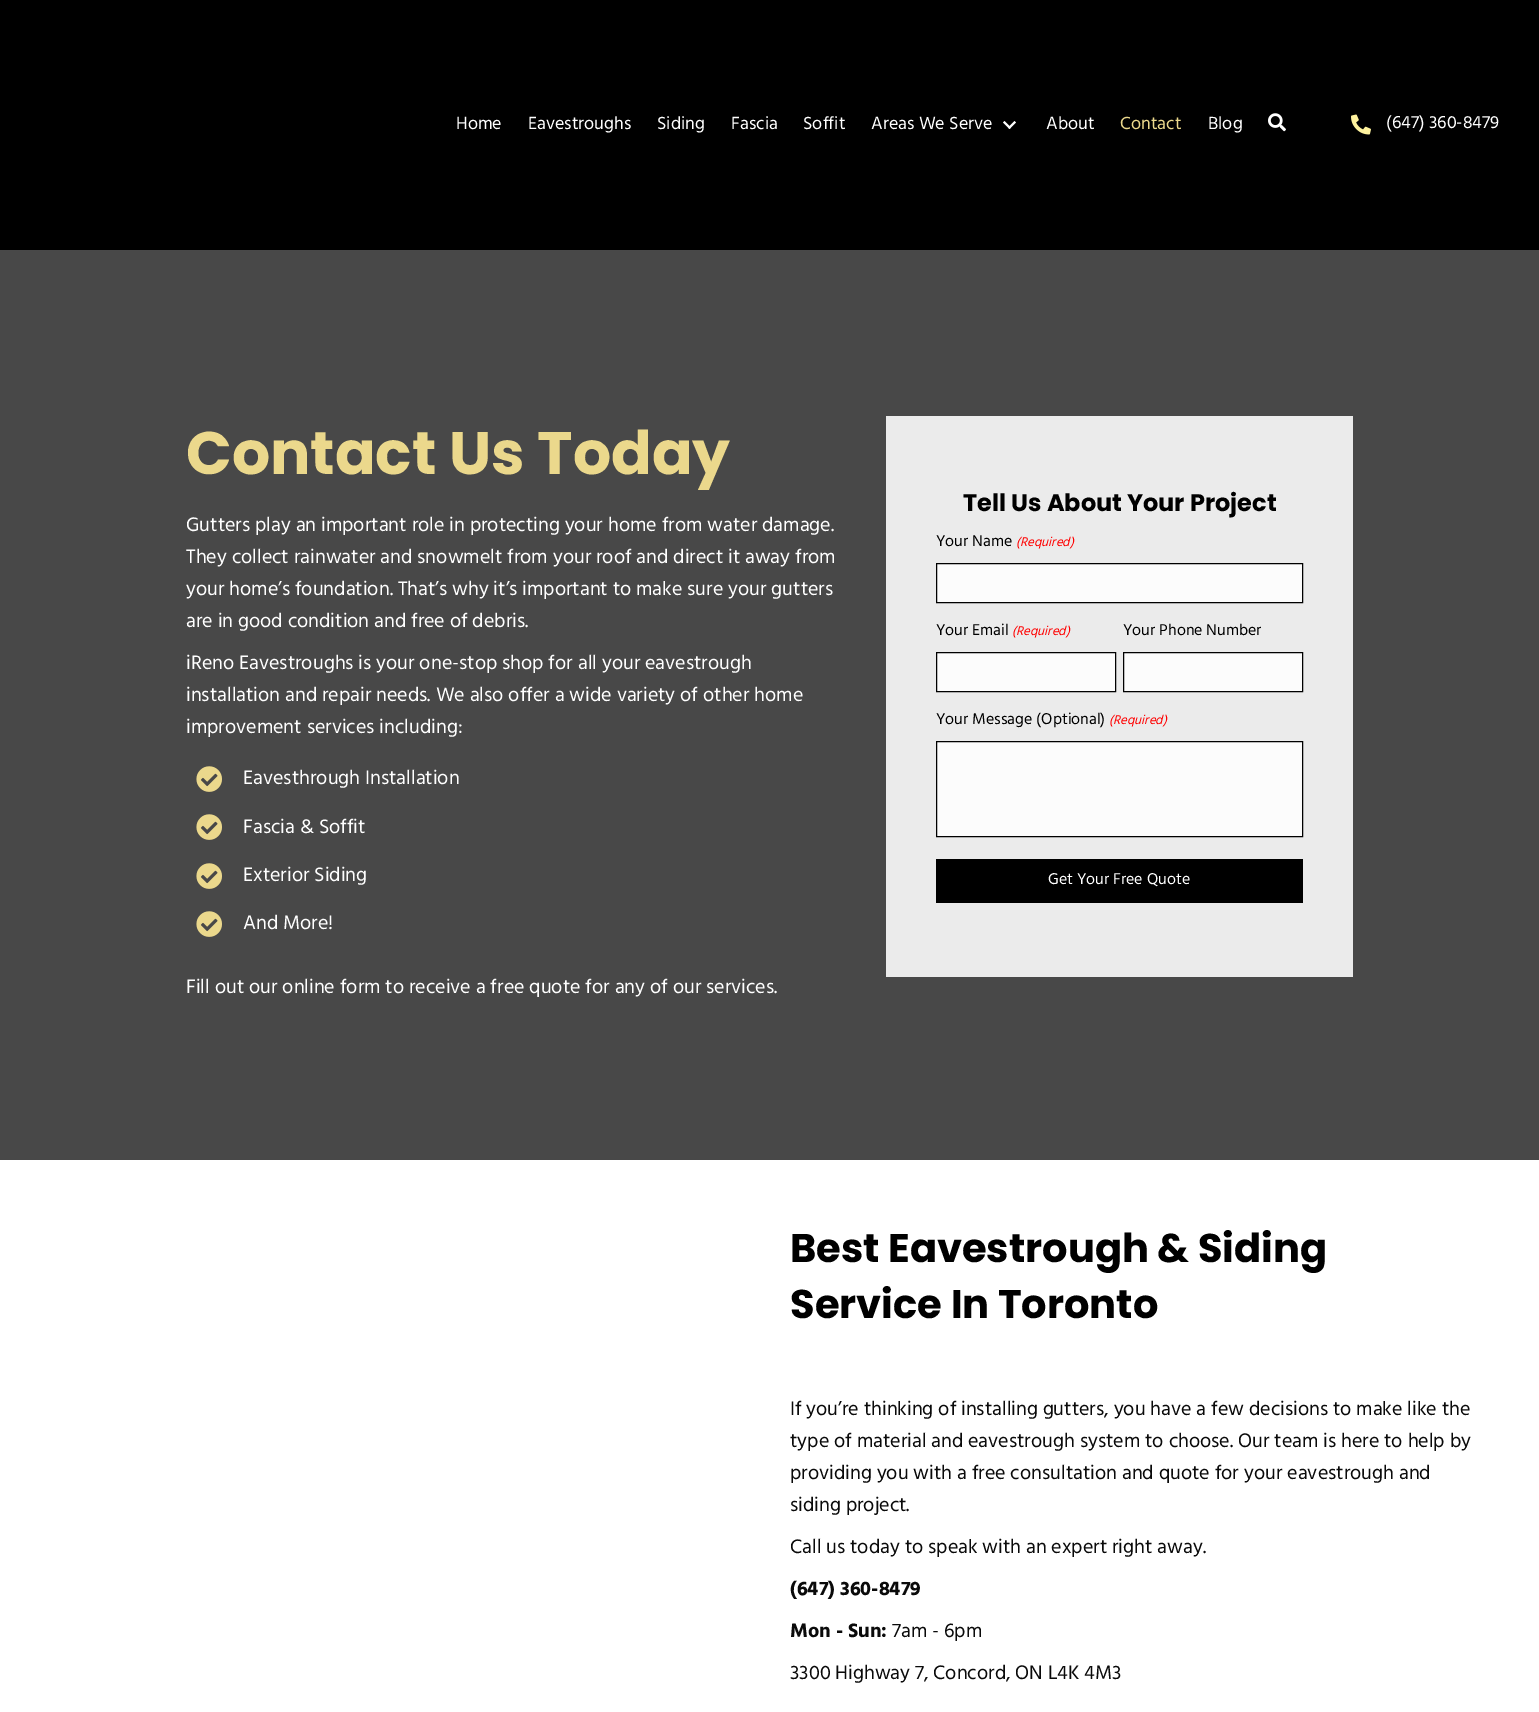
%!PS-Adobe-3.0
%%BoundingBox: 0 0 1539 1712
%%LanguageLevel: 3
%%Pages: 1
%%EndComments
%%BeginProlog
/setink { dup -16 bitshift 255 div exch dup -8 bitshift 255 and 255 div exch 255 and 255 div setrgbcolor } def
/usefont { [ exch dup neg 0 0 3 -1 roll 0 0 ] selectfont } def
/drawimage { 5 dict begin { /h /w /y /x /name } { exch def } forall
  gsave x y translate w h scale
  w h 8 [w 0 0 h 0 0] name (r) file false 3 colorimage grestore end } def
%%EndProlog
%%BeginSetup
<< /PageSize [1539 1712] >> setpagedevice
%%EndSetup
%%Page: 1 1
0 1712 translate 1 -1 scale
4 setmiterlimit
16#FFFFFF setink
0 0 1539 1712 rectfill
16#000000 setink
0 0 1539 250 rectfill
/Hind-Regular 18 usefont
16#FFFFFF setink
[
    [(Home) 456 129]
    [(Eavestroughs) 528 129]
    [(Siding) 657 129]
    [(Fascia) 731 129]
    [(Soffit) 803 129]
    [(Areas We Serve) 871 129]
] { aload pop moveto show } forall
1014.5 121 moveto 1016 122.5 lineto 1009.5 129 lineto 1008 127.5 lineto closepath fill
1004.5 121 moveto 1011 127.5 lineto 1009.5 129 lineto 1003 122.5 lineto closepath fill
1046 129 moveto (About) show
16#EBD88C setink
1120 129 moveto (Contact) show
16#FFFFFF setink
1208 129 moveto (Blog) show
(img1.raw) 1268 113 18 19 drawimage
(img2.raw) 1351 114 20 21 drawimage
1386 128 moveto (\(647\) 360-8479) show
16#484848 setink
0 250 1539 910 rectfill
/Poppins-Bold 60 usefont
16#EBD88C setink
186 474 moveto (Contact Us Today) show
/Hind-Regular 20 usefont
16#FFFFFF setink
[
    [(Gutters play an important role in protecting your home from water damage.) 186 531]
    [(They collect rainwater and snowmelt from your roof and direct it away from) 186 563]
    [(your home’s foundation. That’s why it’s important to make sure your gutters) 186 595]
    [(are in good condition and free of debris.) 186 627]
    [(iReno Eavestroughs is your one-stop shop for all your eavestrough) 186 669]
    [(installation and repair needs. We also offer a wide variety of other home) 186 701]
    [(improvement services including:) 186 733]
] { aload pop moveto show } forall
(img3.raw) 196 766 26 26 drawimage
243 784 moveto (Eavesthrough Installation) show
(img3.raw) 196 814 26 26 drawimage
243 833 moveto (Fascia & Soffit) show
(img3.raw) 196 863 26 26 drawimage
243 881 moveto (Exterior Siding) show
(img3.raw) 196 911 26 26 drawimage
243 929 moveto (And More!) show
186 993 moveto (Fill out our online form to receive a free quote for any of our services.) show
16#EBEBEB setink
886 416 467 561 rectfill
/Poppins-Bold 24 usefont
16#000000 setink
963 511 moveto (Tell Us About Your Project) show
/Hind-Regular 16 usefont
936 546 moveto (Your Name) show
/Hind-Italic 13 usefont
16#FF0000 setink
1016 546 moveto (\(Required\)) show
16#FCFCFC setink
936.5 563.5 moveto 1302.5 563.5 lineto 1302.5 602.5 lineto 936.5 602.5 lineto closepath gsave fill grestore
16#000000 setink
stroke
/Hind-Regular 16 usefont
936 635 moveto (Your Email) show
/Hind-Italic 13 usefont
16#FF0000 setink
1012 635 moveto (\(Required\)) show
16#FCFCFC setink
936.5 652.5 moveto 1115.5 652.5 lineto 1115.5 691.5 lineto 936.5 691.5 lineto closepath gsave fill grestore
16#000000 setink
stroke
/Hind-Regular 16 usefont
1123 635 moveto (Your Phone Number) show
16#FCFCFC setink
1123.5 652.5 moveto 1302.5 652.5 lineto 1302.5 691.5 lineto 1123.5 691.5 lineto closepath gsave fill grestore
16#000000 setink
stroke
936 724 moveto (Your Message \(Optional\)) show
/Hind-Italic 13 usefont
16#FF0000 setink
1109 724 moveto (\(Required\)) show
16#FCFCFC setink
936.5 741.5 moveto 1302.5 741.5 lineto 1302.5 836.5 lineto 936.5 836.5 lineto closepath gsave fill grestore
16#000000 setink
stroke
936 859 367 44 rectfill
/Hind-Regular 16 usefont
16#FFFFFF setink
1048 884 moveto (Get Your Free Quote) show
/Poppins-Bold 40 usefont
16#000000 setink
790 1262 moveto (Best Eavestrough & Siding) show
790 1318 moveto (Service In Toronto) show
/Hind-Regular 20 usefont
16#0A0A0A setink
[
    [(If you’re thinking of installing gutters, you have a few decisions to make like the) 790 1415]
    [(type of material and eavestrough system to choose. Our team is here to help by) 790 1447]
    [(providing you with a free consultation and quote for your eavestrough and) 790 1479]
    [(siding project.) 790 1511]
    [(Call us today to speak with an expert right away.) 790 1553]
] { aload pop moveto show } forall
/Hind-Bold 20 usefont
790 1595 moveto (\(647\) 360-8479) show
790 1637 moveto (Mon - Sun:) show
/Hind-Regular 20 usefont
892 1637 moveto (7am - 6pm) show
790 1679 moveto (3300 Highway 7, Concord, ON L4K 4M3) show
showpage
%%EOF
